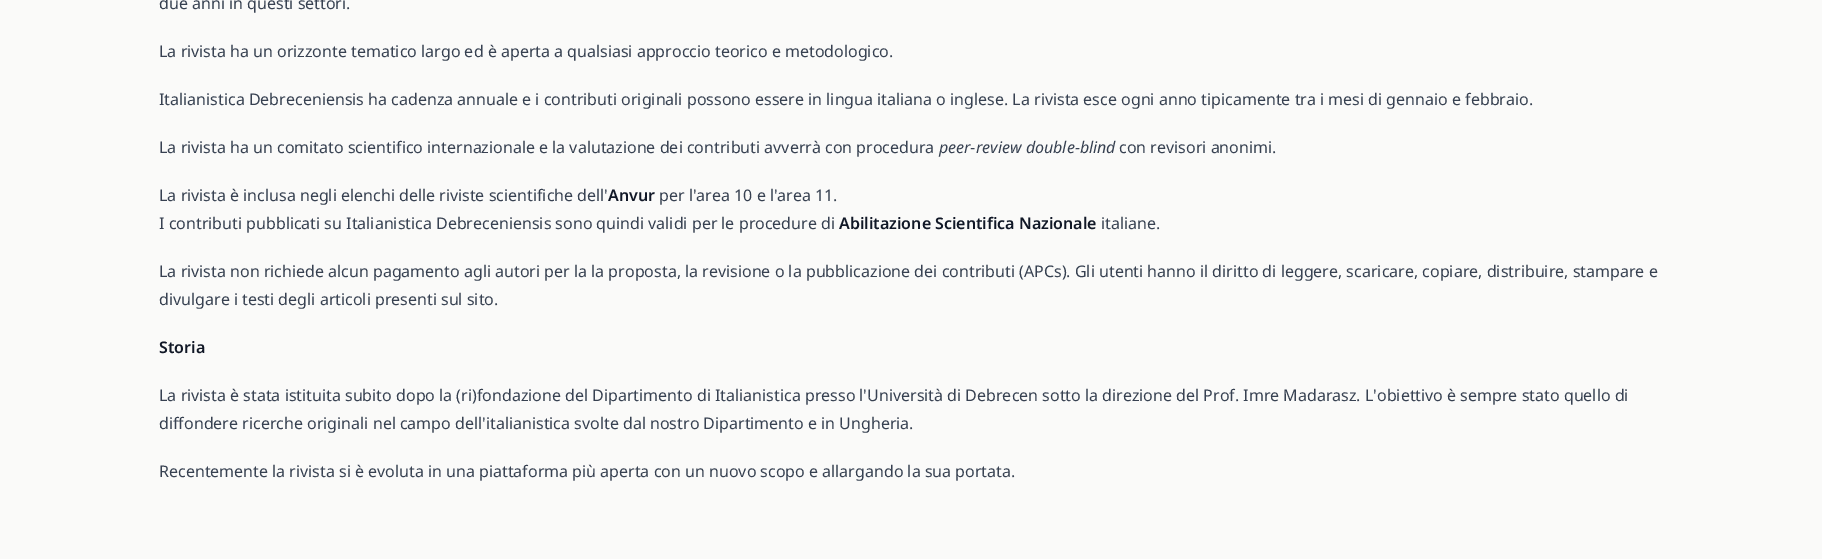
%!PS-Adobe-3.0
%%BoundingBox: 0 0 1822 559
%%LanguageLevel: 3
%%Pages: 1
%%EndComments
%%BeginProlog
/setink { dup -16 bitshift 255 div exch dup -8 bitshift 255 and 255 div exch 255 and 255 div setrgbcolor } def
/usefont { [ exch dup neg 0 0 3 -1 roll 0 0 ] selectfont } def
%%EndProlog
%%BeginSetup
<< /PageSize [1822 559] >> setpagedevice
%%EndSetup
%%Page: 1 1
0 559 translate 1 -1 scale
4 setmiterlimit
16#FAFAF9 setink
0 0 1822 559 rectfill
/NotoSans-Regular 16 usefont
16#374151 setink
[
    [(due anni in questi settori.) 159 9]
    [(La rivista ha un orizzonte tematico largo ed è aperta a qualsiasi approccio teorico e metodologico.) 159 57]
    [(Italianistica Debreceniensis ha cadenza annuale e i contributi originali possono essere in lingua italiana o inglese. La rivista esce ogni anno tipicamente tra i mesi di gennaio e febbraio.) 159 105]
    [(La rivista ha un comitato scientifico internazionale e la valutazione dei contributi avverrà con procedura) 159 153]
] { aload pop moveto show } forall
/NotoSans-Italic 16 usefont
939 153 moveto (peer) show
/NotoSans-Regular 16 usefont
970 153 moveto (-) show
/NotoSans-Italic 16 usefont
976 153 moveto (review double-blind) show
/NotoSans-Regular 16 usefont
1119 153 moveto (con revisori anonimi.) show
159 201 moveto (La rivista è inclusa negli elenchi delle riviste scientifiche dell') show
/NotoSans-SemiBold 16 usefont
16#111827 setink
608 201 moveto (Anvur) show
/NotoSans-Regular 16 usefont
16#374151 setink
659 201 moveto (per l'area 10 e l'area 11.) show
159 229 moveto (I contributi pubblicati su Italianistica Debreceniensis sono quindi validi per le procedure di) show
/NotoSans-SemiBold 16 usefont
16#111827 setink
839 229 moveto (Abilitazione Scientifica Nazionale) show
/NotoSans-Regular 16 usefont
16#374151 setink
[
    [(italiane.) 1101 229]
    [(La rivista non richiede alcun pagamento agli autori per la la proposta, la revisione o la pubblicazione dei contributi \(APCs\). Gli utenti hanno il diritto di leggere, scaricare, copiare, distribuire, stampare e) 159 277]
    [(divulgare i testi degli articoli presenti sul sito.) 159 305]
] { aload pop moveto show } forall
/NotoSans-SemiBold 16 usefont
16#111827 setink
159 353 moveto (Storia) show
/NotoSans-Regular 16 usefont
16#374151 setink
[
    [(La rivista è stata istituita subito dopo la \(ri\)fondazione del Dipartimento di Italianistica presso l'Università di Debrecen sotto la direzione del Prof. Imre Madarasz. L'obiettivo è sempre stato quello di) 159 401]
    [(diffondere ricerche originali nel campo dell'italianistica svolte dal nostro Dipartimento e in Ungheria.) 159 429]
    [(Recentemente la rivista si è evoluta in una piattaforma più aperta con un nuovo scopo e allargando la sua portata.) 159 477]
] { aload pop moveto show } forall
showpage
%%EOF
